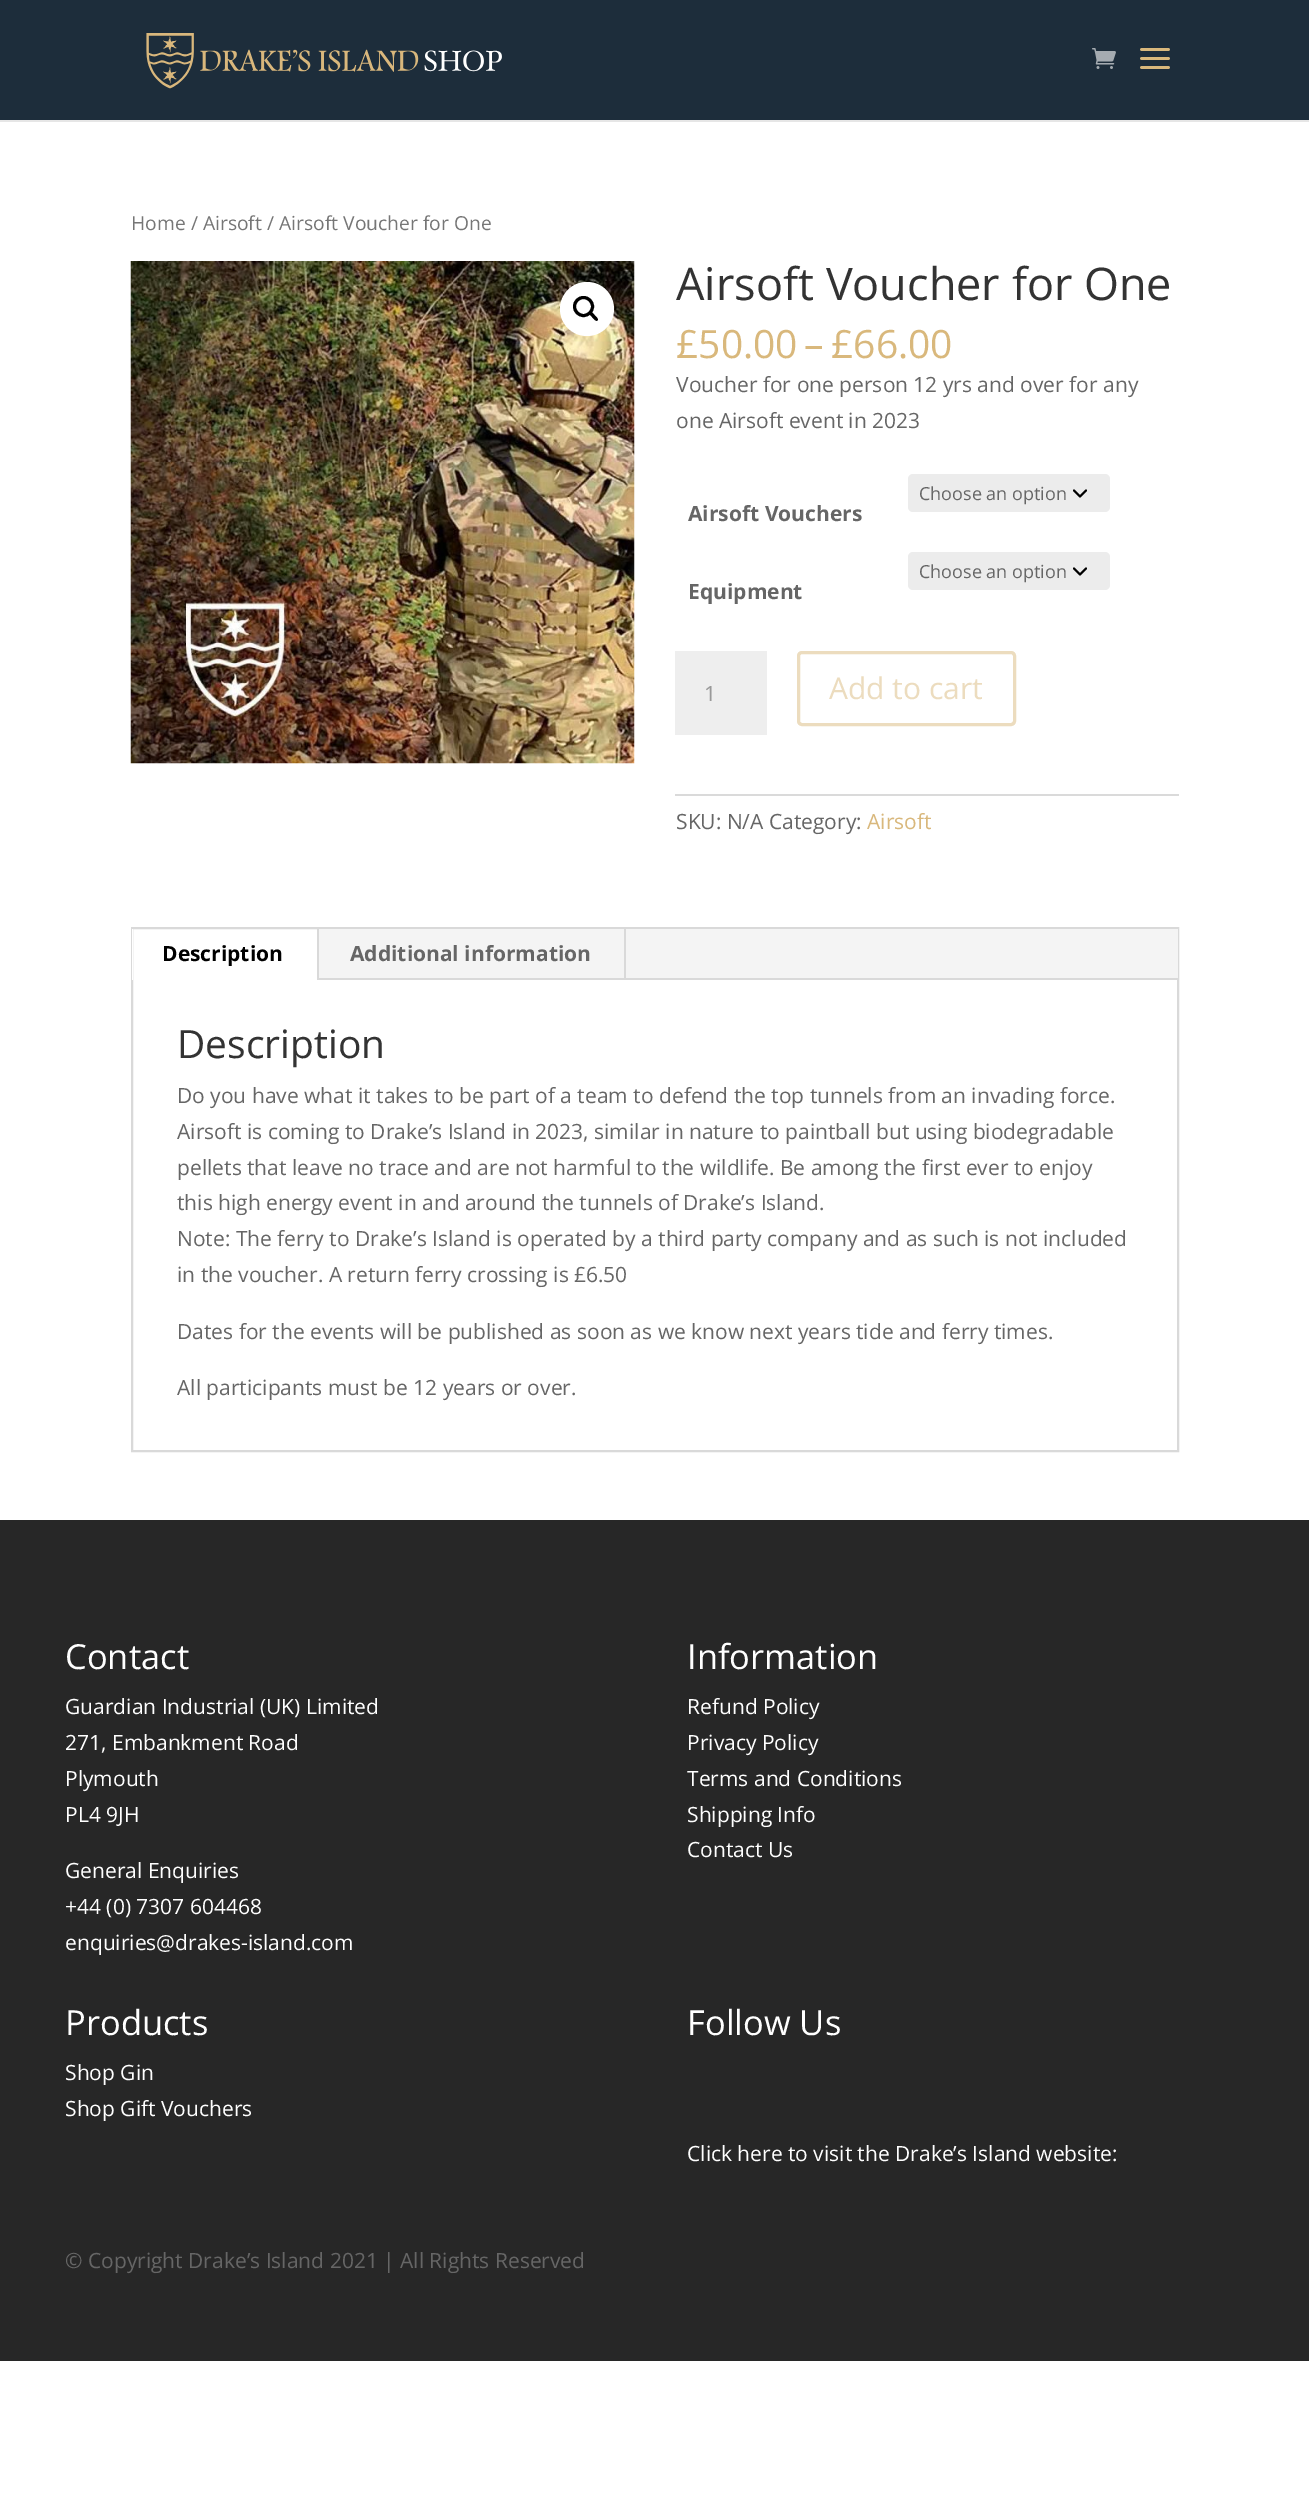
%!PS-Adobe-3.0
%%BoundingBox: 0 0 1309 2519
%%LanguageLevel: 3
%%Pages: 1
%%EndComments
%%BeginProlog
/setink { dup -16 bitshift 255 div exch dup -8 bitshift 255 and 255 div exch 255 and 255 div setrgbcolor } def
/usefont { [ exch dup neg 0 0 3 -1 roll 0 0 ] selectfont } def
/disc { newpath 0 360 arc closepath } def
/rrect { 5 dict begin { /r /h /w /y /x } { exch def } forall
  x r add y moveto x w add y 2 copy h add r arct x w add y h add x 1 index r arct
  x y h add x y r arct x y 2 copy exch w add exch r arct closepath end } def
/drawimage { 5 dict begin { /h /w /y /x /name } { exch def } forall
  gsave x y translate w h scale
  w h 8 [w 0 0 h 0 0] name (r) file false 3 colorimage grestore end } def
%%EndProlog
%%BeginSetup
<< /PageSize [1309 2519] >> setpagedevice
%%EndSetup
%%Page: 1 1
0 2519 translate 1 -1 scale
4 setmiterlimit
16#FFFFFF setink
0 0 1309 2519 rectfill
16#E6E6E6 setink
0 120 moveto 0 122 lineto 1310 122 lineto 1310 2 lineto 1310 120 lineto closepath fill
16#1D2D3B setink
0 0 1309 120 rectfill
(img1.raw) 146 33 356 56 drawimage
(img2.raw) 1092 48 24 21 drawimage
(img3.raw) 1140 48 30 21 drawimage
/OpenSans-Regular 19.3 usefont
16#767676 setink
131 230 moveto (Home / Airsoft / Airsoft Voucher for One) show
(img4.raw) 130 261 505 503 drawimage
16#FFFFFF setink
587 309 27 disc fill
16#000000 setink
3 setlinewidth
583.5 306.5 9 disc stroke
589 312 moveto 590.5 310 593.5 314 594.5 315 curveto 595 316 599 318.5 597.5 320.5 curveto 596 322 593 318 592 317 curveto 591.5 316 587.5 313.5 589 312 curveto closepath fill
/OpenSans-Regular 45 usefont
16#333333 setink
676 300 moveto (Airsoft Voucher for One) show
/OpenSans-Regular 39 usefont
16#D9B87C setink
[
    [(£50.00) 676 358]
    [(–) 804 358]
    [(£66.00) 831 358]
] { aload pop moveto show } forall
/OpenSans-Regular 21 usefont
16#666666 setink
676 392 moveto (Voucher for one person 12 yrs and over for any) show
676 428 moveto (one Airsoft event in 2023) show
16#ECECEC setink
908 474 202 38 5 rrect fill
16#000000 setink
2 setlinewidth
1 setlinecap
1 setlinejoin
1074 490.5 moveto 1080 496.5 lineto 1086 490.5 lineto stroke
/OpenSans-Regular 18 usefont
16#666666 setink
919 500 moveto (Choose an option) show
/OpenSans-Bold 21 usefont
688 521 moveto (Airsoft Vouchers) show
16#ECECEC setink
908 552 202 38 5 rrect fill
16#000000 setink
1074 568.5 moveto 1080 574.5 lineto 1086 568.5 lineto stroke
/OpenSans-Regular 18 usefont
16#666666 setink
919 578 moveto (Choose an option) show
/OpenSans-Bold 21 usefont
688 599 moveto (Equipment) show
16#EEEEEE setink
675 651 92 84 rectfill
/OpenSans-Regular 21 usefont
16#999999 setink
704 701 moveto (1) show
16#ECDCBE setink
3 setlinewidth
0 setlinecap
0 setlinejoin
798.5 652.5 216 72 3.5 rrect stroke
/OpenSans-Regular 30 usefont
829 699 moveto (Add to cart) show
16#DADADA setink
675 794 504 2 rectfill
/OpenSans-Regular 21 usefont
16#666666 setink
676 829 moveto (SKU: N/A Category:) show
16#D9B87C setink
867 829 moveto (Airsoft) show
16#D9D9D9 setink
2 setlinewidth
132 928 1046 523 rectstroke
[
    [319 929 859 49 16#F4F4F4]
    [132 929 1 51 16#FFFFFF]
    [317 929 2 51 16#D9D9D9]
] { aload pop setink rectfill } forall
/OpenSans-Bold 21 usefont
16#000000 setink
162 961 moveto (Description) show
16#D9D9D9 setink
624 929 2 51 rectfill
16#666666 setink
350 961 moveto (Additional information) show
16#D9D9D9 setink
319 978 859 2 rectfill
/OpenSans-Regular 39 usefont
16#333333 setink
177 1058 moveto (Description) show
/OpenSans-Regular 21 usefont
16#666666 setink
[
    [(Do you have what it takes to be part of a team to defend the top tunnels from an invading force.) 177 1103]
    [(Airsoft is coming to Drake’s Island in 2023, similar in nature to paintball but using biodegradable) 177 1139]
    [(pellets that leave no trace and are not harmful to the wildlife. Be among the first ever to enjoy) 177 1175]
    [(this high energy event in and around the tunnels of Drake’s Island.) 177 1210]
    [(Note: The ferry to Drake’s Island is operated by a third party company and as such is not included) 177 1246]
    [(in the voucher. A return ferry crossing is £6.50) 177 1282]
    [(Dates for the events will be published as soon as we know next years tide and ferry times.) 177 1339]
    [(All participants must be 12 years or over.) 177 1395]
] { aload pop moveto show } forall
16#272727 setink
0 1520 1309 841 rectfill
/OpenSans-Regular 34.5 usefont
16#FFFFFF setink
65 1669 moveto (Contact) show
/OpenSans-Regular 21 usefont
[
    [(Guardian Industrial \(UK\) Limited) 65 1714]
    [(271, Embankment Road) 65 1750]
    [(Plymouth) 65 1786]
    [(PL4 9JH) 65 1822]
    [(General Enquiries) 65 1878]
    [(+44 \(0\) 7307 604468) 65 1914]
    [(enquiries@drakes-island.com) 65 1950]
] { aload pop moveto show } forall
/OpenSans-Regular 34.5 usefont
687 1669 moveto (Information) show
/OpenSans-Regular 21 usefont
[
    [(Refund Policy) 687 1714]
    [(Privacy Policy) 687 1750]
    [(Terms and Conditions) 687 1786]
    [(Shipping Info) 687 1822]
    [(Contact Us) 687 1857]
] { aload pop moveto show } forall
/OpenSans-Regular 34.5 usefont
65 2035 moveto (Products) show
/OpenSans-Regular 21 usefont
65 2080 moveto (Shop Gin) show
65 2116 moveto (Shop Gift Vouchers) show
/OpenSans-Regular 34.5 usefont
687 2035 moveto (Follow Us) show
/OpenSans-Regular 21 usefont
687 2161 moveto (Click here to visit the Drake’s Island website:) show
16#666666 setink
65 2268 moveto (© Copyright Drake’s Island 2021 | All Rights Reserved) show
showpage
%%EOF
